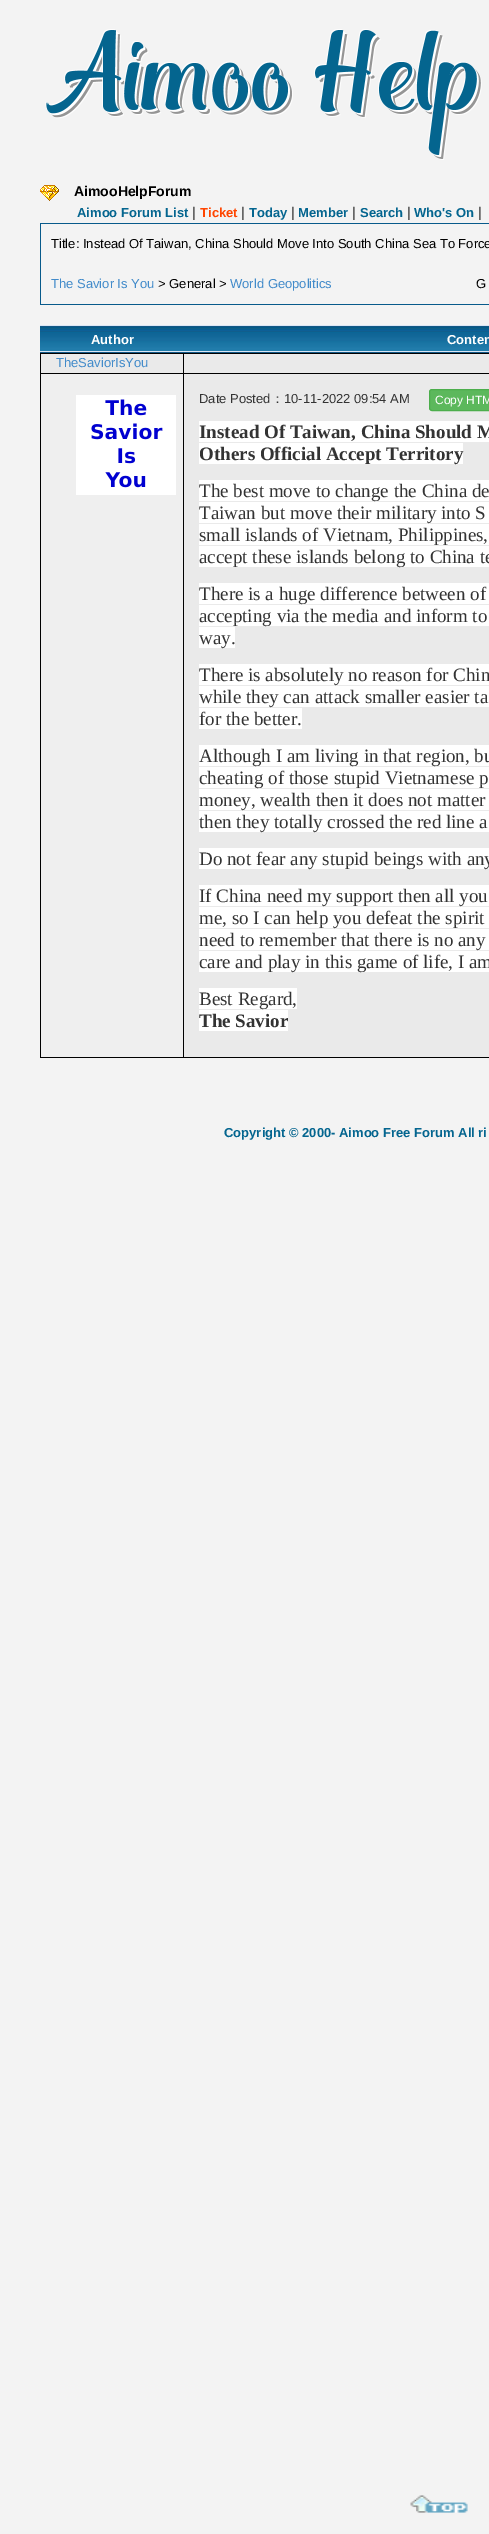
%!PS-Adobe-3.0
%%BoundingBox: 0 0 489 2534
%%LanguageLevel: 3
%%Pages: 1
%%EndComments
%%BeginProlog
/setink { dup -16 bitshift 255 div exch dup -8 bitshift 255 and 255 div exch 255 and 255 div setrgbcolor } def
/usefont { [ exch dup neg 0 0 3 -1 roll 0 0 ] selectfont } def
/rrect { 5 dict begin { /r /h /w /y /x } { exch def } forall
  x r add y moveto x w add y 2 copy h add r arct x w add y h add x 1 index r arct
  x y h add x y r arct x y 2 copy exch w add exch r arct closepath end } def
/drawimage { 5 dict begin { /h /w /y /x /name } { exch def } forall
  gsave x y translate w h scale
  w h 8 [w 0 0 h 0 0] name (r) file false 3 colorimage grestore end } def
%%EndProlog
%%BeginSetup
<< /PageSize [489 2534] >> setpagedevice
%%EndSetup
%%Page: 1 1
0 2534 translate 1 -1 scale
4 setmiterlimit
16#F3F3F3 setink
0 0 489 2534 rectfill
(img1.raw) 45 29 437 131 drawimage
(img2.raw) 40 185 19 16 drawimage
/LiberationSans-Bold 14 usefont
16#000000 setink
74 196 moveto (AimooHelpForum) show
/LiberationSans-Bold 13 usefont
16#04658F setink
77 217 moveto (Aimoo Forum List) show
/LiberationSans-Regular 14 usefont
16#333333 setink
192 217 moveto (|) show
/LiberationSans-Bold 13 usefont
16#FF4500 setink
200 217 moveto (Ticket) show
/LiberationSans-Regular 14 usefont
16#333333 setink
241 217 moveto (|) show
/LiberationSans-Bold 13 usefont
16#04658F setink
249 217 moveto (Today) show
/LiberationSans-Regular 14 usefont
16#333333 setink
291 217 moveto (|) show
/LiberationSans-Bold 13 usefont
16#04658F setink
298 217 moveto (Member) show
/LiberationSans-Regular 14 usefont
16#333333 setink
352 217 moveto (|) show
/LiberationSans-Bold 13 usefont
16#04658F setink
360 217 moveto (Search) show
/LiberationSans-Regular 14 usefont
16#333333 setink
407 217 moveto (|) show
/LiberationSans-Bold 13 usefont
16#04658F setink
414 217 moveto (Who's On) show
/LiberationSans-Regular 14 usefont
16#333333 setink
478 217 moveto (|) show
[
    [40 223 449 1 16#085A8B]
    [40 304 449 1 16#085A8B]
    [40 223 1 82 16#085A8B]
] { aload pop setink rectfill } forall
/LiberationSans-Regular 13 usefont
16#000000 setink
51 248 moveto (Title: Instead Of Taiwan, China Should Move Into South China Sea To Force) show
16#428BCA setink
51 288 moveto (The Savior Is You) show
16#000000 setink
158 288 moveto (> General >) show
16#428BCA setink
230 288 moveto (World Geopolitics) show
16#000000 setink
476 288 moveto (G) show
(img3.raw) 40 325 449 28 drawimage
/LiberationSans-Bold 13 usefont
16#FFFFFF setink
91 344 moveto (Author) show
447 344 moveto (Conten) show
[
    [41 354 142 19 16#EAEAEA]
    [183 353 306 1 16#000000]
    [183 373 306 1 16#000000]
    [183 1057 306 1 16#000000]
    [183 373 1 685 16#000000]
    [40 373 144 1 16#000000]
    [183 353 1 21 16#000000]
    [40 353 144 1 16#000000]
    [40 1057 144 1 16#000000]
    [40 373 1 685 16#000000]
    [40 353 1 21 16#000000]
] { aload pop setink rectfill } forall
/LiberationSans-Regular 13 usefont
16#428BCA setink
56 367 moveto (TheSaviorIsYou) show
[
    [184 354 305 19 16#EAEAEA]
    [184 374 305 683 16#EAEAEA]
    [41 374 142 683 16#EFEFEF]
] { aload pop setink rectfill } forall
(img4.raw) 76 395 100 100 drawimage
16#333333 setink
199 403 moveto (Date Posted) show
/WenQuanYiZenHei-Medium 13 usefont
271 403 moveto (：) show
/LiberationSans-Regular 13 usefont
284 403 moveto (10-11-2022 09:54 AM) show
16#5CB85C setink
429.5 389.5 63 21 2.5 rrect gsave fill grestore
16#4CAE4C setink
stroke
/LiberationSans-Regular 12 usefont
16#FFFFFF setink
435 404 moveto (Copy HTM) show
199 421 290 21 rectfill
/LiberationSerif-Bold 19 usefont
16#333333 setink
199 438 moveto (Instead Of Taiwan, China Should M) show
16#FFFFFF setink
199 443 264 21 rectfill
16#333333 setink
199 460 moveto (Others Official Accept Territory) show
16#FFFFFF setink
199 480 290 21 rectfill
/LiberationSerif-Regular 19 usefont
16#333333 setink
199 497 moveto (The best move to change the China de) show
16#FFFFFF setink
199 502 290 21 rectfill
16#333333 setink
199 519 moveto (Taiwan but move their military into S) show
16#FFFFFF setink
199 524 290 21 rectfill
16#333333 setink
199 541 moveto (small islands of Vietnam, Philippines,) show
16#FFFFFF setink
199 546 290 21 rectfill
16#333333 setink
199 563 moveto (accept these islands belong to China te) show
16#FFFFFF setink
199 583 290 21 rectfill
16#333333 setink
199 600 moveto (There is a huge difference between of) show
16#FFFFFF setink
199 605 290 21 rectfill
16#333333 setink
199 622 moveto (accepting via the media and inform to) show
16#FFFFFF setink
199 627 36 21 rectfill
16#333333 setink
199 644 moveto (way.) show
16#FFFFFF setink
199 664 290 21 rectfill
16#333333 setink
199 681 moveto (There is absolutely no reason for Chin) show
16#FFFFFF setink
199 686 290 21 rectfill
16#333333 setink
199 703 moveto (while they can attack smaller easier ta) show
16#FFFFFF setink
199 708 103 21 rectfill
16#333333 setink
199 725 moveto (for the better.) show
16#FFFFFF setink
199 745 290 21 rectfill
16#333333 setink
199 762 moveto (Although I am living in that region, bu) show
16#FFFFFF setink
199 767 290 21 rectfill
16#333333 setink
199 784 moveto (cheating of those stupid Vietnamese p) show
16#FFFFFF setink
199 789 290 21 rectfill
16#333333 setink
199 806 moveto (money, wealth then it does not matter) show
16#FFFFFF setink
199 811 290 21 rectfill
16#333333 setink
199 828 moveto (then they totally crossed the red line a) show
16#FFFFFF setink
199 848 290 21 rectfill
16#333333 setink
199 865 moveto (Do not fear any stupid beings with any) show
16#FFFFFF setink
199 885 290 21 rectfill
16#333333 setink
199 902 moveto (If China need my support then all you) show
16#FFFFFF setink
199 907 290 21 rectfill
16#333333 setink
199 924 moveto (me, so I can help you defeat the spirit) show
16#FFFFFF setink
199 929 290 21 rectfill
16#333333 setink
199 946 moveto (need to remember that there is no any) show
16#FFFFFF setink
199 951 290 21 rectfill
16#333333 setink
199 968 moveto (care and play in this game of life, I am) show
16#FFFFFF setink
199 988 98 21 rectfill
16#333333 setink
199 1005 moveto (Best Regard,) show
16#FFFFFF setink
199 1010 89 21 rectfill
/LiberationSerif-Bold 19 usefont
16#333333 setink
199 1027 moveto (The Savior) show
/LiberationSans-Bold 13 usefont
16#04658F setink
224 1137 moveto (Copyright © 2000- Aimoo Free Forum All ri) show
(img5.raw) 410 2495 58 18 drawimage
showpage
%%EOF
